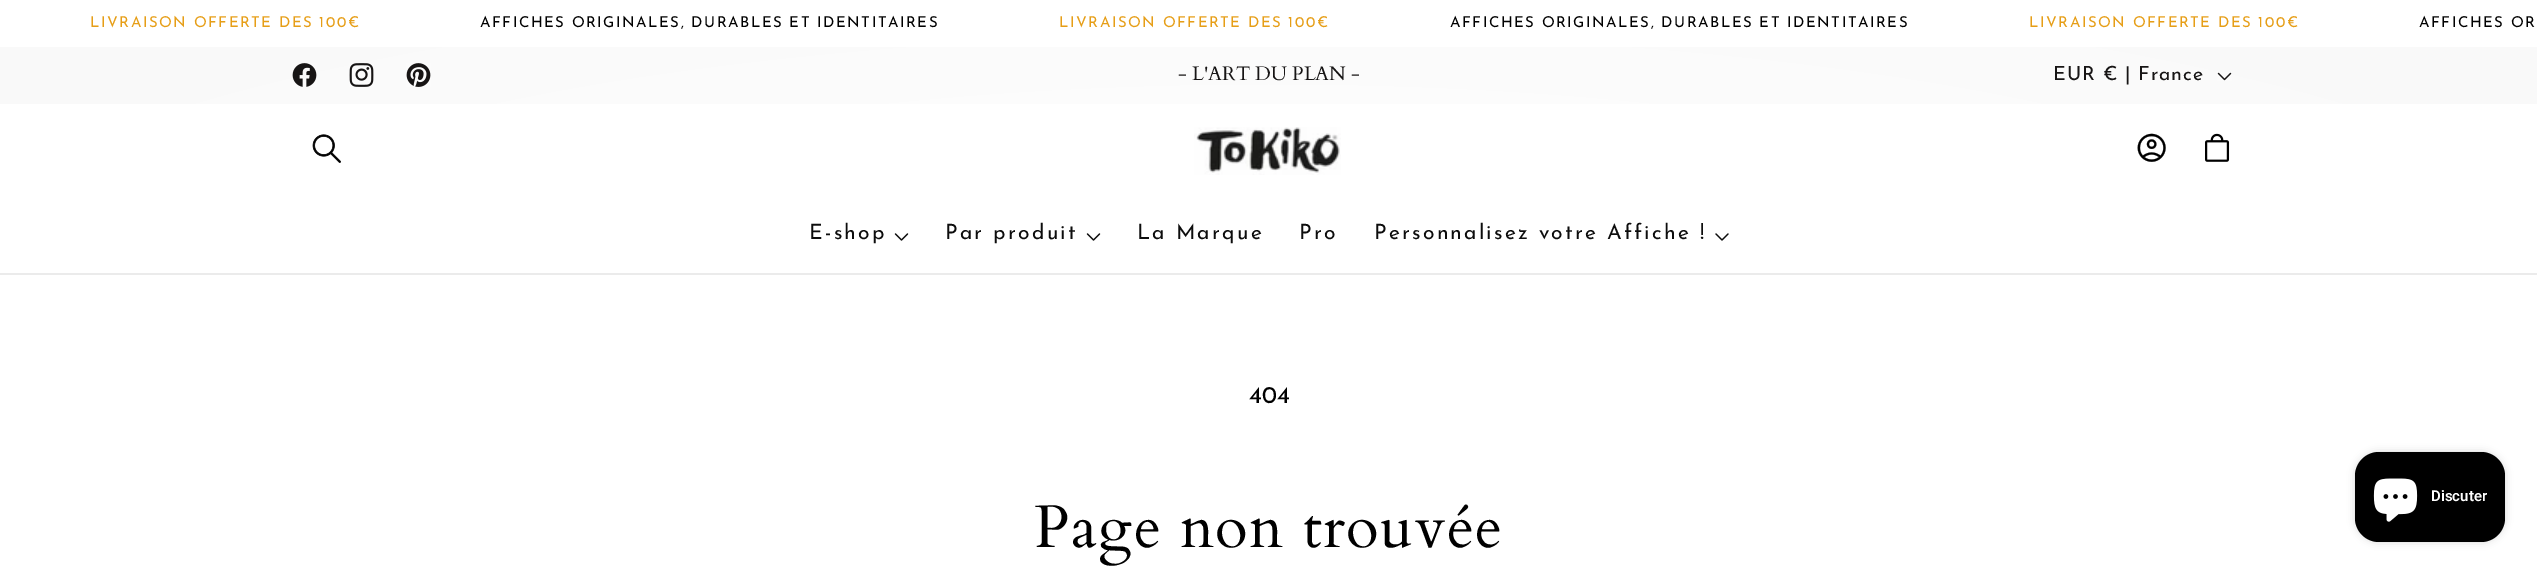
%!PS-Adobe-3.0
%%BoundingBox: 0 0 2537 573
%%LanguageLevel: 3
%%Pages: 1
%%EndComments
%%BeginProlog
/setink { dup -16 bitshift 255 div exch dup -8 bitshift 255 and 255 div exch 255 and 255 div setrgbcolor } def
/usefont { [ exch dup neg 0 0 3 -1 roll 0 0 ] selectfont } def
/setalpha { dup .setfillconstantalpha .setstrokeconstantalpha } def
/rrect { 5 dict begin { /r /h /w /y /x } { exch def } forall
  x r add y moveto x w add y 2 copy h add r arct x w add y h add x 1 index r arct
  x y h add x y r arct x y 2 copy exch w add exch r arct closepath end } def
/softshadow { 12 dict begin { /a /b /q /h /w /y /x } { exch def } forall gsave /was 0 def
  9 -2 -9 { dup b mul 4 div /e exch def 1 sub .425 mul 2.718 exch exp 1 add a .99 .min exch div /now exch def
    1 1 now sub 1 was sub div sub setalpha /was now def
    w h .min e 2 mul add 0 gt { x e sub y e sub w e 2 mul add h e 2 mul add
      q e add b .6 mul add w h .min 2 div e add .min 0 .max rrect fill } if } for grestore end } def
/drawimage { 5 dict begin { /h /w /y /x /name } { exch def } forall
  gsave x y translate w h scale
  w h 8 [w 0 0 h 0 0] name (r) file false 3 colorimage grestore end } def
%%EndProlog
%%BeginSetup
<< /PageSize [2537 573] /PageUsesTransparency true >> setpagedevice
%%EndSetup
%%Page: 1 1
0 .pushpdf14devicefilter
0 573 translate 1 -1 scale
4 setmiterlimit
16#FFFFFF setink
0 0 2537 573 rectfill
/JosefinSans-Regular 15 usefont
16#E69E17 setink
90 27 moveto 1.5 0 (LIVRAISON OFFERTE DES 100€) ashow
16#000000 setink
480 27 moveto 1.5 0 (AFFICHES ORIGINALES, DURABLES ET IDENTITAIRES) ashow
16#E69E17 setink
1059 27 moveto 1.5 0 (LIVRAISON OFFERTE DES 100€) ashow
16#000000 setink
1450 27 moveto 1.5 0 (AFFICHES ORIGINALES, DURABLES ET IDENTITAIRES) ashow
16#E69E17 setink
2029 27 moveto 1.5 0 (LIVRAISON OFFERTE DES 100€) ashow
16#000000 setink
2419 27 moveto 1.5 0 (AFFICHES OR) ashow
gsave 0 47 moveto 2537 47 lineto 2537 104 lineto 0 104 lineto closepath clip newpath 1269 287 translate 1795 405 scale
<< /ShadingType 3 /ColorSpace /DeviceRGB /Coords [0 0 0 0 0 1] /Extend [true true] /Function << /FunctionType 2 /Domain [0 1] /C0 [1 1 1] /C1 [0.976 0.976 0.976] /N 1 >> >> shfill grestore
(img1.raw) 292 63 25 24 drawimage
(img2.raw) 349 63 25 24 drawimage
(img3.raw) 406 63 25 24 drawimage
/Cardo-Regular 19.5 usefont
16#171515 setink
1178 80 moveto (- L'ART DU PLAN -) show
/JosefinSans-Regular 19.5 usefont
2053 80 moveto 0.9 0 (EUR € | France) ashow
(img4.raw) 2217 72 15 9 drawimage
16#EBEBEB setink
0 273 2537 2 rectfill
(img5.raw) 312 134 29 29 drawimage
(img6.raw) 1194 127 147 48 drawimage
(img7.raw) 2137 133 29 29 drawimage
(img8.raw) 2205 133 25 29 drawimage
/JosefinSans-Regular 21 usefont
16#0D0D0D setink
809 239 moveto 2.25 0 (E-shop) ashow
(img9.raw) 894 233 15 8 drawimage
945 239 moveto 2.25 0 (Par produit) ashow
(img9.raw) 1086 233 15 8 drawimage
1137 239 moveto 2.25 0 (La Marque) ashow
1299 239 moveto 2.25 0 (Pro) ashow
1374 239 moveto 2.25 0 (Personnalisez votre Affiche !) ashow
(img10.raw) 1715 233 14 8 drawimage
/JosefinSans-Regular 24 usefont
16#000000 setink
1249 403 moveto (404) show
/Cardo-Regular 60 usefont
1034 547 moveto 1.5 0 (Page non trouvée) ashow
2355 452 150 90 24 4 0.15 softshadow
2355 452 150 90 24 rrect fill
(img11.raw) 2373 478 45 44 drawimage
gsave
2432 474 55 45 rectclip
/Roboto-SemiBold 15 usefont
16#FFFFFF setink
2431 501 moveto (Discuter) show
grestore
.poppdf14devicefilter showpage
%%EOF
